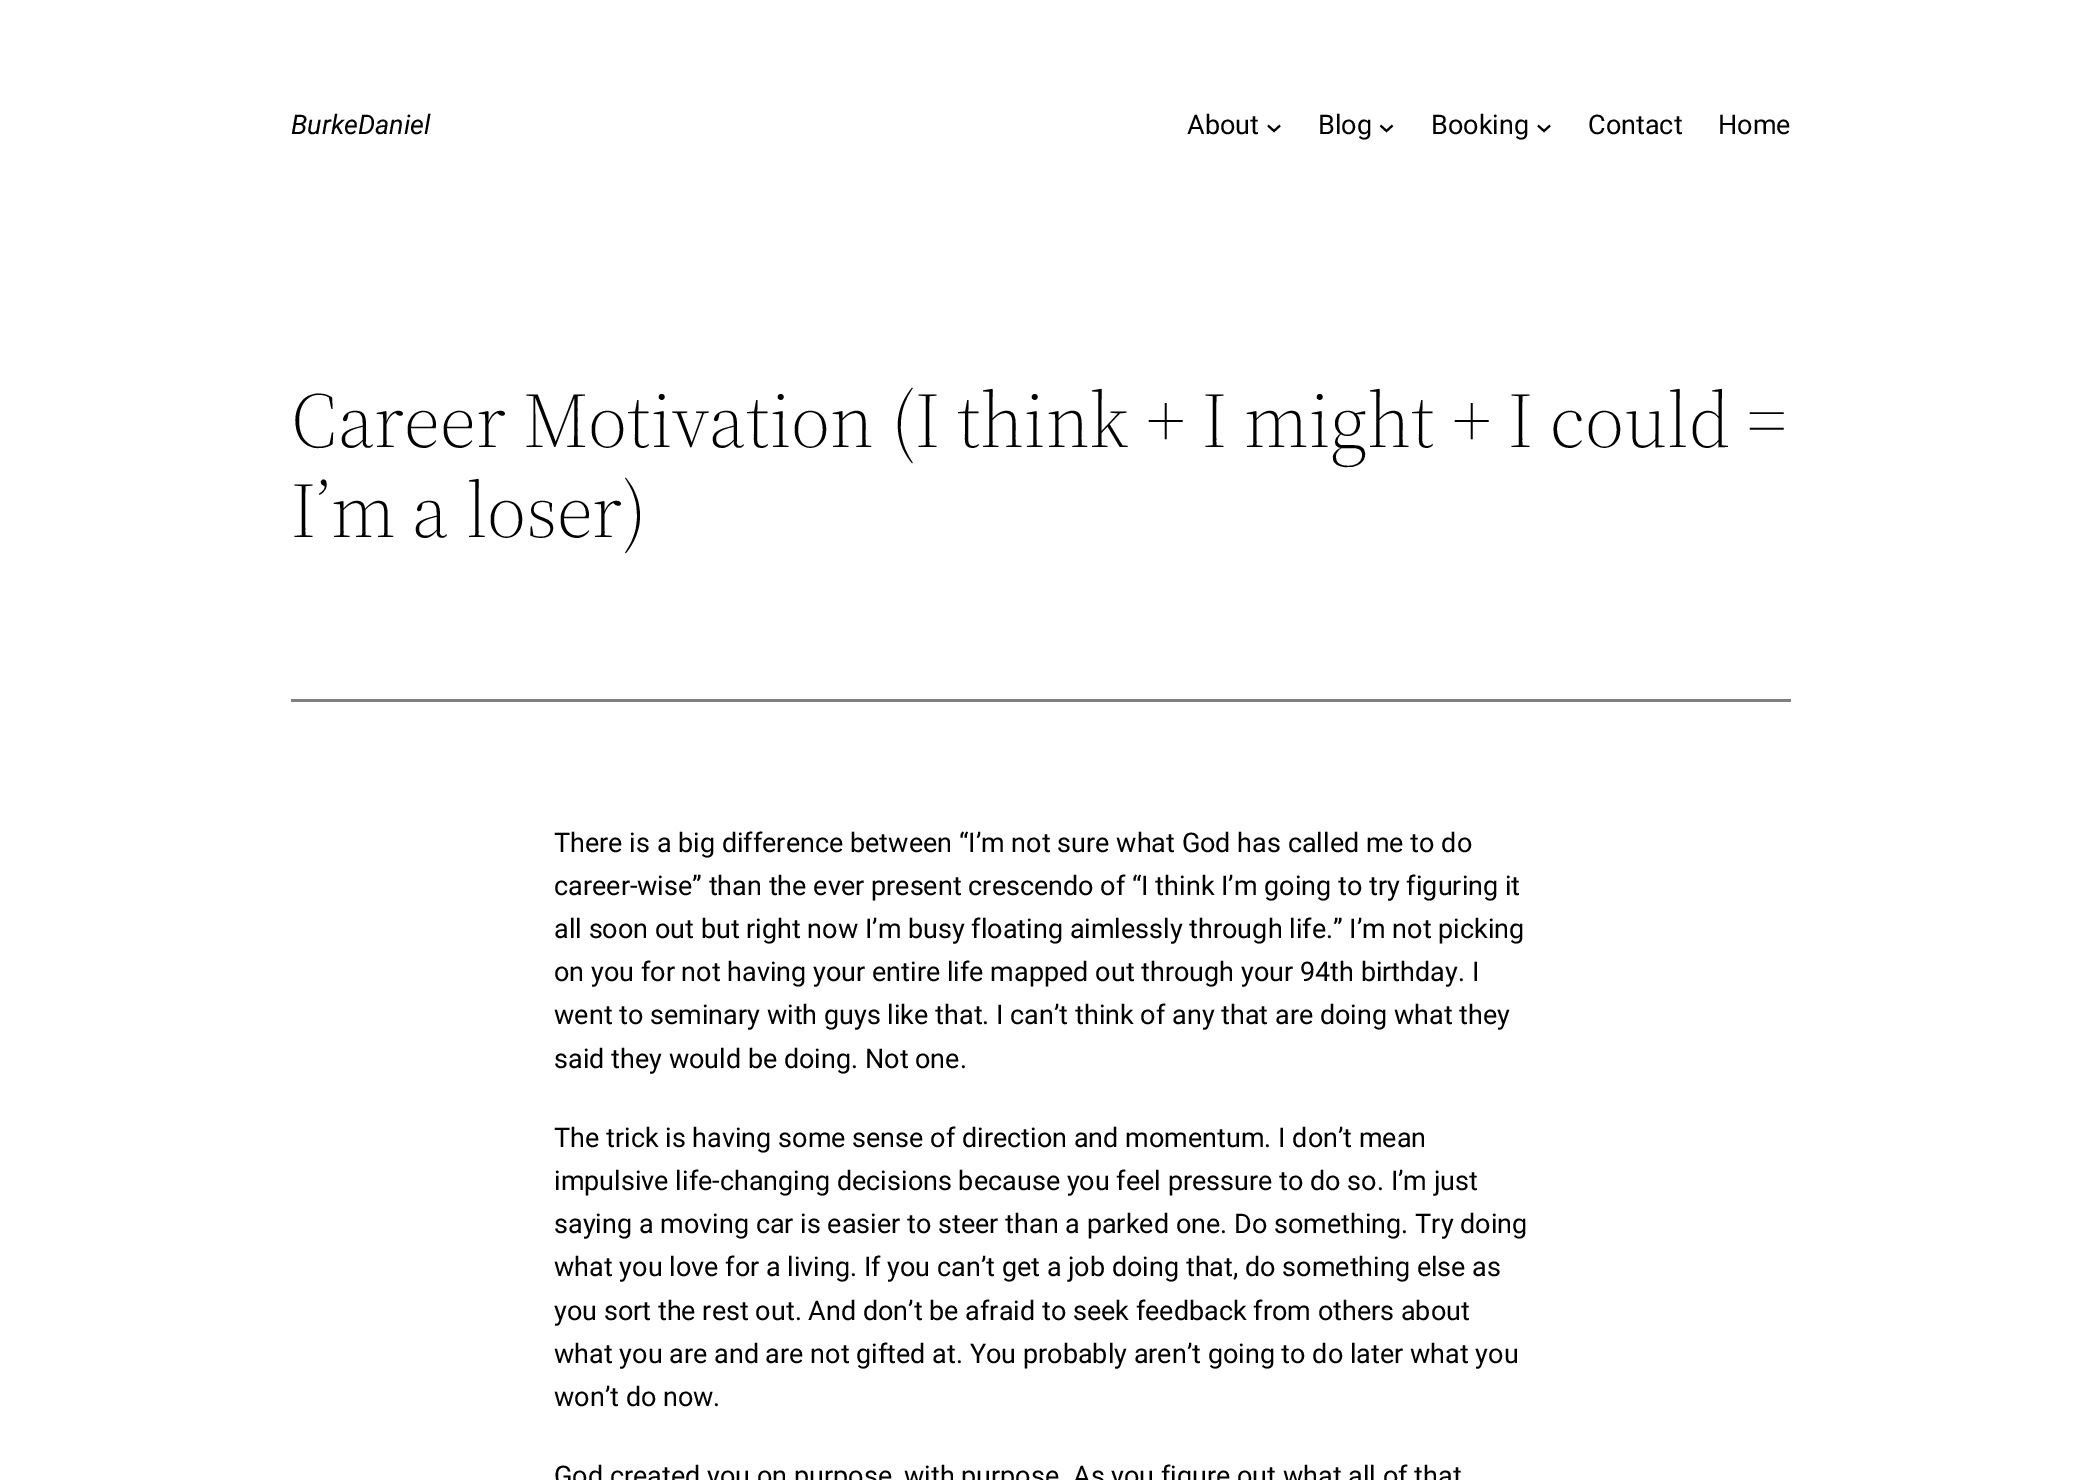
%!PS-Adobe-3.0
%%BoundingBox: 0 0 2082 1480
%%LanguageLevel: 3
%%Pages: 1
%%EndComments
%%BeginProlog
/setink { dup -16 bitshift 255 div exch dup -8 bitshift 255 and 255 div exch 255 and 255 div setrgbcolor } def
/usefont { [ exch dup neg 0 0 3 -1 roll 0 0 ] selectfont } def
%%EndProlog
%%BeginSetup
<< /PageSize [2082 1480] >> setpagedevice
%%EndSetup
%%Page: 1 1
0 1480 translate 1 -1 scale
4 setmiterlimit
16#FFFFFF setink
0 0 2082 1480 rectfill
/Roboto-Italic 27 usefont
16#000000 setink
291 134 moveto (BurkeDaniel) show
/Roboto-Regular 27 usefont
1187 134 moveto (About) show
2 setlinewidth
1268 125.5 moveto 1274 131 lineto 1280 125.5 lineto stroke
1318 134 moveto (Blog) show
1380.5 125.5 moveto 1386.5 131 lineto 1392.5 125.5 lineto stroke
1431 134 moveto (Booking) show
1538 125.5 moveto 1544 131 lineto 1550 125.5 lineto stroke
1588 134 moveto (Contact) show
1718 134 moveto (Home) show
/SourceSerif4-Light 78 usefont
291 447 moveto (Career Motivation \(I think + I might + I could =) show
291 537 moveto (I’m a loser\)) show
16#808080 setink
291 699 1500 3 rectfill
/Roboto-Regular 27 usefont
16#000000 setink
[
    [(There is a big difference between “I’m not sure what God has called me to do) 554 852]
    [(career-wise” than the ever present crescendo of “I think I’m going to try figuring it) 554 895]
    [(all soon out but right now I’m busy floating aimlessly through life.” I’m not picking) 554 938]
    [(on you for not having your entire life mapped out through your 94th birthday. I) 554 981]
    [(went to seminary with guys like that. I can’t think of any that are doing what they) 554 1024]
    [(said they would be doing. Not one.) 554 1068]
    [(The trick is having some sense of direction and momentum. I don’t mean) 554 1147]
    [(impulsive life-changing decisions because you feel pressure to do so. I’m just) 554 1190]
    [(saying a moving car is easier to steer than a parked one. Do something. Try doing) 554 1233]
    [(what you love for a living. If you can’t get a job doing that, do something else as) 554 1276]
    [(you sort the rest out. And don’t be afraid to seek feedback from others about) 554 1320]
    [(what you are and are not gifted at. You probably aren’t going to do later what you) 554 1363]
    [(won’t do now.) 554 1406]
    [(God created you on purpose, with purpose. As you figure out what all of that) 554 1485]
] { aload pop moveto show } forall
showpage
%%EOF
